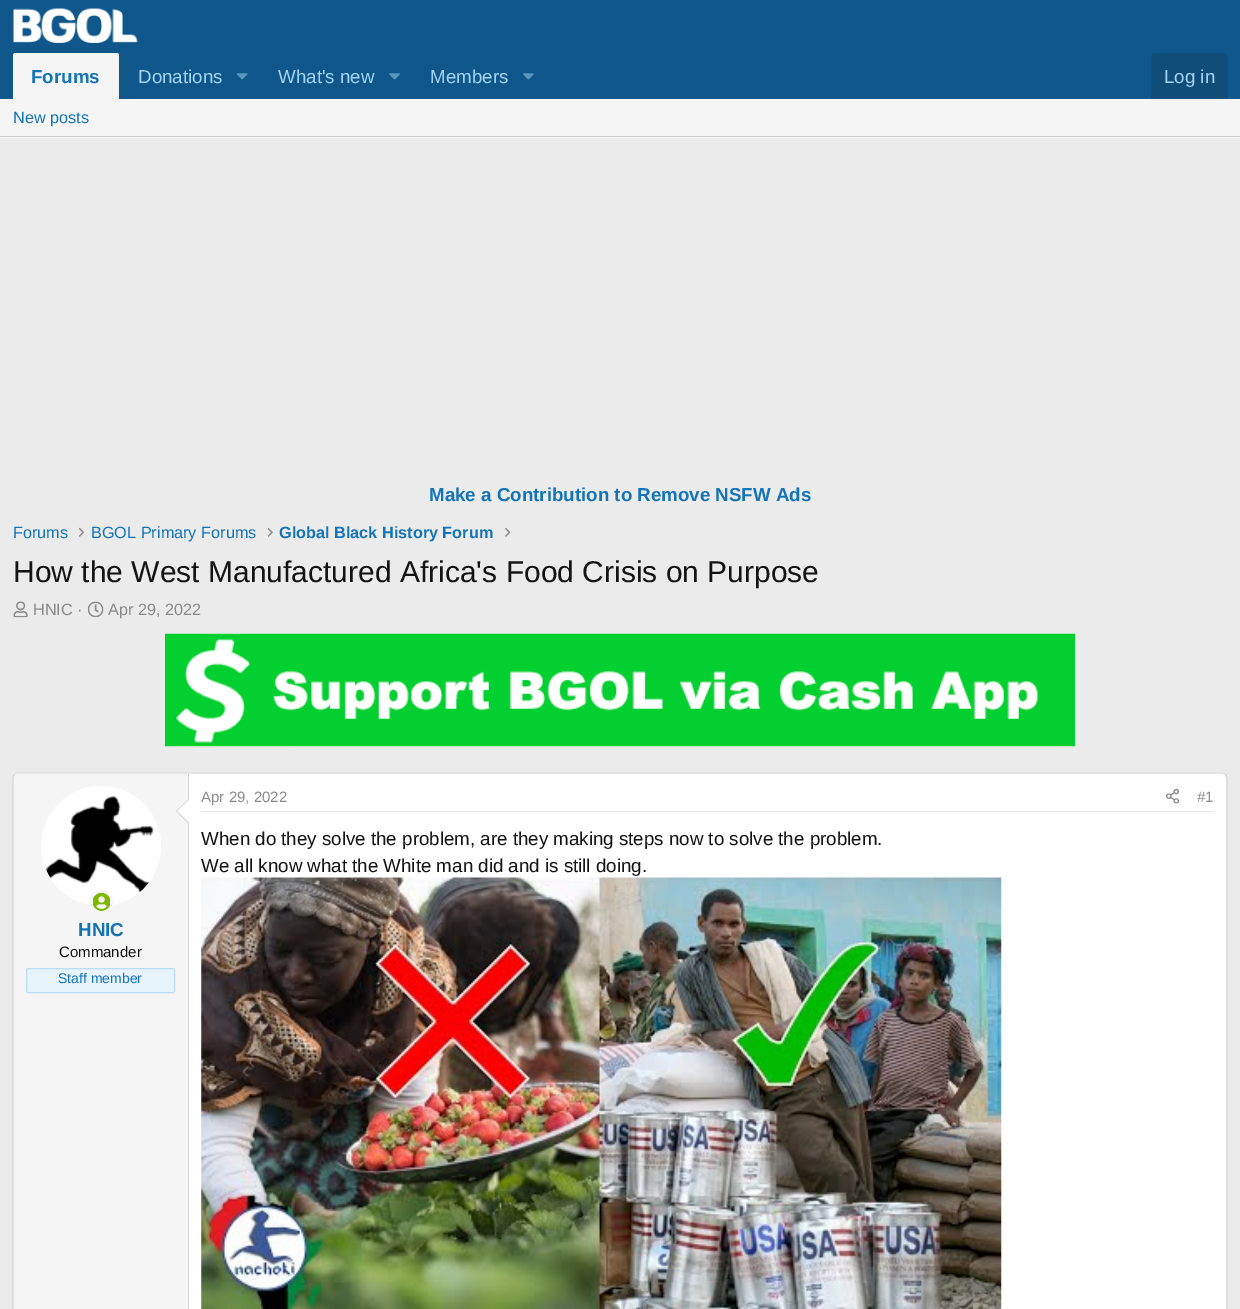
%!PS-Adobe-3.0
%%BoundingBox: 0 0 1240 1309
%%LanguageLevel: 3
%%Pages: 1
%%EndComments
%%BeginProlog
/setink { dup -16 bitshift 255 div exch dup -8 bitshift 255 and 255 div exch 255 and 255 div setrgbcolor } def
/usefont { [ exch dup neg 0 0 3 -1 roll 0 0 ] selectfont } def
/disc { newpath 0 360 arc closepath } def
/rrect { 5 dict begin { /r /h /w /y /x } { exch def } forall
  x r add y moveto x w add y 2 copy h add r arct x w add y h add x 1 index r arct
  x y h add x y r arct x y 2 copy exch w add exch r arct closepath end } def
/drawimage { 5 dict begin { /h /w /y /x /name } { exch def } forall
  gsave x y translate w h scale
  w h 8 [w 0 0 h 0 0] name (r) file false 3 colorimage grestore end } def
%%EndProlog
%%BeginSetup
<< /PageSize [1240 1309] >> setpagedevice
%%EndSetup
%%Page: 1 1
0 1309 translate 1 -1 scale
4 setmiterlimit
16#EBEBEB setink
0 0 1240 1309 rectfill
16#0F578A setink
0 0 1240 99 rectfill
(img1.raw) 12 8 126 35 drawimage
16#F5F5F5 setink
15.5 53 moveto 116.5 53 lineto 118 53 119 54 119 55.5 curveto 119 99 lineto 13 99 lineto 13 55.5 lineto 13 54 14 53 15.5 53 curveto closepath fill
/LiberationSans-Bold 18.75 usefont
16#1474B8 setink
31 83 moveto (Forums) show
/LiberationSans-Regular 18.75 usefont
16#A3D4F5 setink
138 83 moveto (Donations) show
(img2.raw) 236 73 12 7 drawimage
278 83 moveto (What's new) show
(img3.raw) 389 73 11 7 drawimage
430 83 moveto (Members) show
(img4.raw) 523 73 11 7 drawimage
16#104D78 setink
1156 53 moveto 1223 53 lineto 1226 53 1228 55 1228 58 curveto 1228 99 lineto 1151 99 lineto 1151 58 lineto 1151 55 1153 53 1156 53 curveto closepath fill
16#A3D4F5 setink
1164 83 moveto (Log in) show
16#F5F5F5 setink
0 99 1240 39 rectfill
16#CCCCCC setink
0 136 1240 1 rectfill
/LiberationSans-Regular 16.25 usefont
16#1474B8 setink
13 123 moveto (New posts) show
/LiberationSans-Bold 18.75 usefont
429 501 moveto (Make a Contribution to Remove NSFW Ads) show
/LiberationSans-Regular 16.25 usefont
13 538 moveto (Forums) show
(img5.raw) 79 527 5 10 drawimage
91 538 moveto (BGOL Primary Forums) show
(img6.raw) 268 527 5 10 drawimage
/LiberationSans-Bold 16.25 usefont
279 538 moveto (Global Black History Forum) show
(img7.raw) 505 527 5 10 drawimage
/LiberationSans-Regular 30 usefont
16#141414 setink
13 582 moveto (How the West Manufactured Africa's Food Crisis on Purpose) show
(img8.raw) 13 601 15 17 drawimage
/LiberationSans-Regular 16.25 usefont
16#8A8A8A setink
33 615 moveto (HNIC ·) show
(img9.raw) 87 601 17 17 drawimage
108 615 moveto (Apr 29, 2022) show
(img10.raw) 165 633 910 114 drawimage
16#FFFFFF setink
13 773 1215 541 5 rrect fill
16#E0E0E0 setink
1.2 setlinewidth
14.5 774.5 moveto 17.5 773 lineto 1222.5 773 lineto 1225.5 774.5 lineto stroke
16#D6D6D6 setink
1225.5 774.5 moveto 1227 777.5 lineto 1227 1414 lineto 1225.5 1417 lineto stroke
14.5 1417 moveto 13 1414 lineto 13 777.5 lineto 14.5 774.5 lineto stroke
16#E6E6E6 setink
201 811 1013 1 rectfill
/LiberationSans-Regular 15 usefont
16#8A8A8A setink
201 802 moveto (Apr 29, 2022) show
(img11.raw) 1166 789 13 15 drawimage
1197 802 moveto (#1) show
/LiberationSans-Regular 18.75 usefont
16#141414 setink
201 845 moveto (When do they solve the problem, are they making steps now to solve the problem.) show
201 872 moveto (We all know what the White man did and is still doing.) show
(img12.raw) 201 877 801 432 drawimage
16#F5F5F5 setink
18 774 moveto 189 774 lineto 189 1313 lineto 18 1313 lineto 16 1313 14 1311 14 1309 curveto 14 778 lineto 14 776 16 774 18 774 curveto closepath fill
16#D6D6D6 setink
188 774 1 535 rectfill
16#FFFFFF setink
101 846 60 disc fill
(img13.raw) 46 796 108 99 drawimage
16#F5F5F5 setink
101 902 12 disc fill
(img14.raw) 93 893 17 18 drawimage
16#D6D6D6 setink
189 799 moveto 189 824 lineto 176 811 lineto closepath fill
16#FFFFFF setink
189 800 moveto 189 822.5 lineto 177.5 811 lineto closepath fill
/LiberationSans-Bold 18.75 usefont
16#1474B8 setink
78 936 moveto (HNIC) show
/LiberationSans-Regular 15 usefont
16#141414 setink
59 957 moveto (Commander) show
16#E8F4FC setink
26.5 968.5 148 24 2 rrect gsave fill grestore
16#BADDF7 setink
1 setlinewidth
stroke
/LiberationSans-Regular 14 usefont
16#1474B8 setink
58 983 moveto (Staff member) show
showpage
%%EOF
